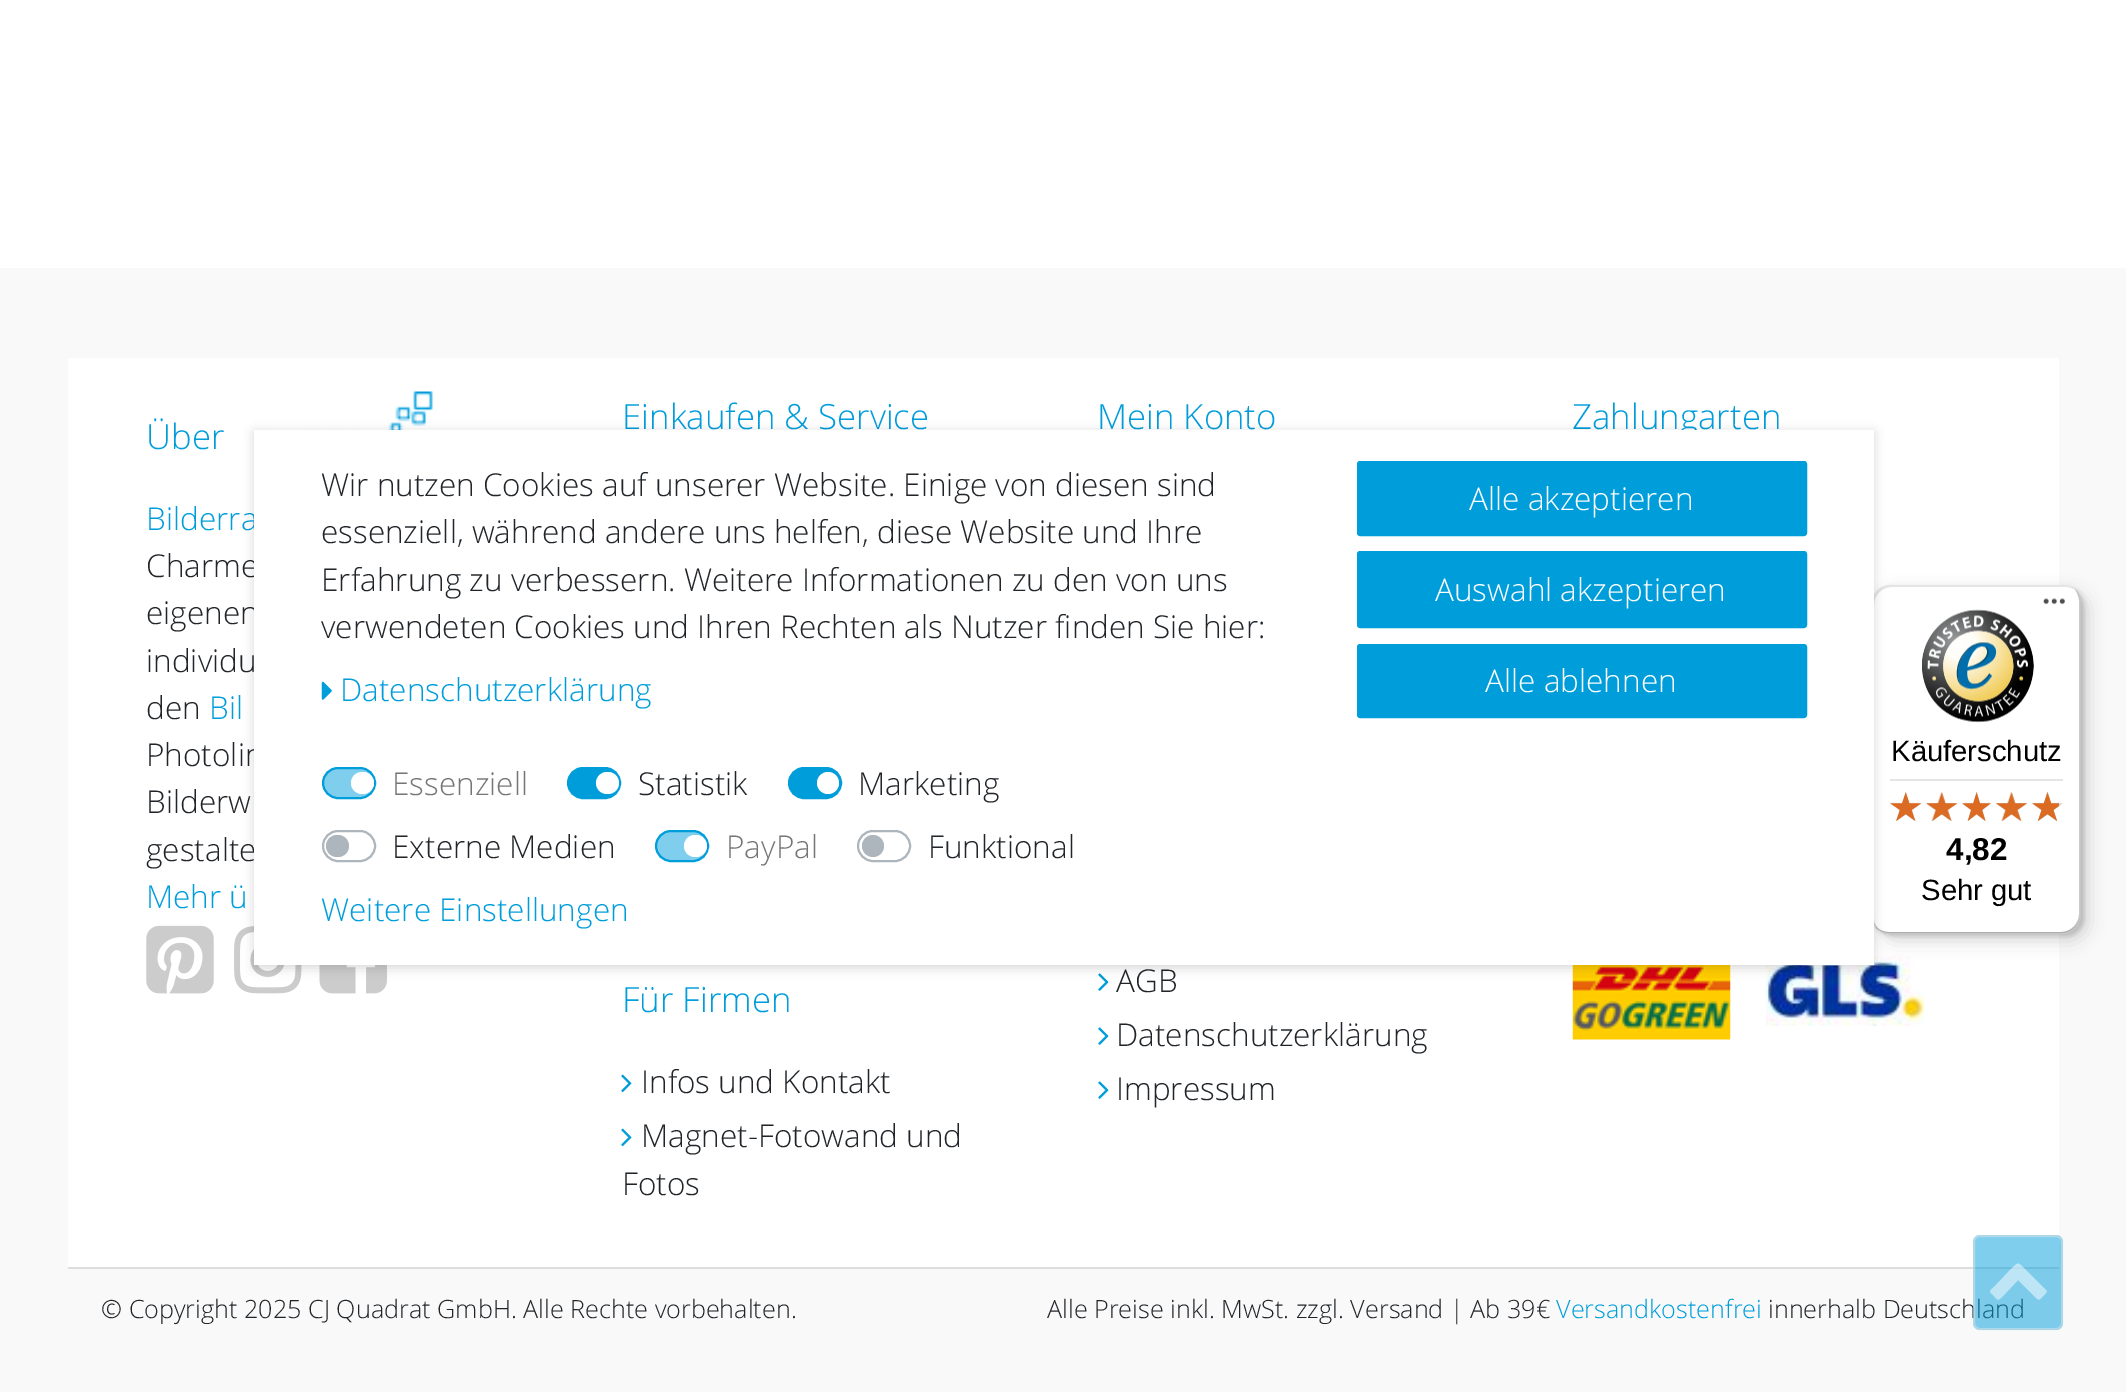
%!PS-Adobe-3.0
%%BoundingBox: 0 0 2126 1392
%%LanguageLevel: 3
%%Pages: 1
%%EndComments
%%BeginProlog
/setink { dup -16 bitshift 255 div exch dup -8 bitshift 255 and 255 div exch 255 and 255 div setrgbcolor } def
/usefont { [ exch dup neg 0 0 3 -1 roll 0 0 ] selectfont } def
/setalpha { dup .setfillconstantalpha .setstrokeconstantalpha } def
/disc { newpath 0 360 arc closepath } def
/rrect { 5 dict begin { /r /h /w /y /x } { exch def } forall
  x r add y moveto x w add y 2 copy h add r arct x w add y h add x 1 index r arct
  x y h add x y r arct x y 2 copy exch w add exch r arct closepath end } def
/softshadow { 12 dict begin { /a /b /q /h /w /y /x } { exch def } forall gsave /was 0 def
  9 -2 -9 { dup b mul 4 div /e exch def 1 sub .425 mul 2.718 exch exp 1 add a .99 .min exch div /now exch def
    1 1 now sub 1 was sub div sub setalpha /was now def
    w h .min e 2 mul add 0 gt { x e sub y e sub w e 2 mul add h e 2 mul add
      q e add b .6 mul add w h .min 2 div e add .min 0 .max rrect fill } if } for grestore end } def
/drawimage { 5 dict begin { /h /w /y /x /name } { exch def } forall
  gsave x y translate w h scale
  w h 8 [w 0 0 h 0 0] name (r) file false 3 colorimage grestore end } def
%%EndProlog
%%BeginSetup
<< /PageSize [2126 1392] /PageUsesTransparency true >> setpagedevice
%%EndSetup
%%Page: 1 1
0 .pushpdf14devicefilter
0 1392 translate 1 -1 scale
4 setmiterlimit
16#FFFFFF setink
0 0 2126 1392 rectfill
[
    [0 268 2126 1124 16#F9F9F9]
    [68 358 1991 909 16#FFFFFF]
    [68 1267 1991 2 16#DDDDDD]
] { aload pop setink rectfill } forall
(img1.raw) 255 391 180 39 drawimage
/OpenSans-Light 34.75 usefont
16#009DDB setink
146 449 moveto (Über) show
/OpenSans-Light 31.5 usefont
146 530 moveto (Bilderra) show
16#212529 setink
[
    [(Charme) 146 577]
    [(eigenen) 146 624]
    [(individu) 146 672]
    [(den) 146 719]
] { aload pop moveto show } forall
16#009DDB setink
209 719 moveto (Bil) show
16#212529 setink
[
    [(Photolin) 146 766]
    [(Bilderw) 146 813]
    [(gestalte) 146 861]
] { aload pop moveto show } forall
16#009DDB setink
146 908 moveto (Mehr ü) show
(img2.raw) 146 925 68 69 drawimage
(img3.raw) 234 926 68 68 drawimage
(img4.raw) 319 965 68 29 drawimage
/OpenSans-Light 34.75 usefont
622 429 moveto (Einkaufen & Service) show
622 1012 moveto (Für Firmen) show
(img5.raw) 621 1074 11 19 drawimage
/OpenSans-Light 31.5 usefont
16#212529 setink
641 1093 moveto (Infos und Kontakt) show
(img5.raw) 621 1128 11 19 drawimage
641 1147 moveto (Magnet-Fotowand und) show
622 1195 moveto (Fotos) show
/OpenSans-Light 34.75 usefont
16#009DDB setink
1097 429 moveto (Mein Konto) show
(img6.raw) 1098 973 11 18 drawimage
/OpenSans-Light 31.5 usefont
16#212529 setink
1116 992 moveto (AGB) show
(img6.raw) 1098 1027 11 18 drawimage
1116 1046 moveto (Datenschutzerklärung) show
(img6.raw) 1098 1081 11 18 drawimage
1116 1100 moveto (Impressum) show
/OpenSans-Light 34.75 usefont
16#009DDB setink
1572 429 moveto (Zahlungarten) show
(img7.raw) 1572 965 159 75 drawimage
(img8.raw) 1766 956 158 70 drawimage
/OpenSans-Light 25.2 usefont
16#212529 setink
101 1318 moveto (© Copyright 2025 CJ Quadrat GmbH. Alle Rechte vorbehalten.) show
1047 1318 moveto (Alle Preise inkl. MwSt. zzgl. Versand | Ab 39€) show
16#009DDB setink
1556 1318 moveto (Versandkostenfrei) show
16#212529 setink
1768 1318 moveto (innerhalb Deutschland) show
0.5 setalpha
16#009DDB setink
1973 1235 90 95 7 rrect fill
16#DEE2E6 setink
2 setlinewidth
1974 1236 88 93 6 rrect stroke
16#FFFFFF setink
2046 1293 moveto 2039 1300 2040 1302 2034 1296 curveto 2018 1280 lineto 2003 1296 lineto 1997 1302 1998 1300 1992 1294 curveto 1988 1291 1991 1290 1995 1286 curveto 2012 1268 lineto 2019 1262 2017 1262 2024 1268 curveto 2042 1286 lineto 2042 1287 2049 1291 2046 1293 curveto closepath fill
1 setalpha
16#000000 setink
1879 592 209 349 18 9 0.15 softshadow
1874 587 210 349 18 2 0.15 softshadow
16#FFFFFF setink
1872 585 209 349 18 rrect fill
0.1 setalpha
16#000000 setink
1892 587 moveto 2066 587 lineto 2069 587 2072 588 2075 590 curveto 2072 587 2068 585 2063 585 curveto 1890 585 lineto 1880 585 1872 593 1872 603 curveto 1872 916 lineto 1872 921 1874 926 1878 930 curveto 1876 926 1874 922 1874 918 curveto 1874 605 lineto 1874 595 1882 587 1892 587 curveto closepath fill
0.2 setalpha
1875 927 moveto 1879 931 1884 934 1890 934 curveto 2063 934 lineto 2073 934 2081 926 2081 916 curveto 2081 603 lineto 2081 598 2079 593 2075 589 curveto 2077 593 2079 597 2079 601 curveto 2079 914 lineto 2079 923 2071 932 2061 932 curveto 1888 932 lineto 1883 932 1879 930 1875 927 curveto closepath fill
16#323232 setink
1874 923 moveto 1876 930 1883 934 1890 934 curveto 2063 934 lineto 2073 934 2081 926 2081 916 curveto 2081 603 lineto 2081 598 2079 593 2076 590 curveto 2078 593 2080 597 2080 602 curveto 2080 914 lineto 2080 924 2072 932 2062 932 curveto 1889 932 lineto 1882 932 1877 928 1874 923 curveto closepath fill
0.3 setalpha
16#FFFFFF setink
1877 929 moveto 1880 932 1885 934 1890 934 curveto 2063 934 lineto 2073 934 2081 926 2081 916 curveto 2081 603 lineto 2081 598 2079 593 2076 590 curveto 2078 593 2080 597 2080 602 curveto 2080 915 lineto 2080 925 2072 933 2062 933 curveto 1889 933 lineto 1884 933 1880 931 1877 929 curveto closepath fill
1 setalpha
16#E5E5E5 setink
1890 779 173 2 rectfill
(img12.raw) 1890 792 31 29 drawimage
(img17.raw) 1890 792 31 29 drawimage
16#000000 setink
254 432 1620 536 0 5.5 0.15 softshadow
16#FFFFFF setink
254 430 1620 535 rectfill
/OpenSans-Light 31.5 usefont
16#212529 setink
[
    [(Wir nutzen Cookies auf unserer Website. Einige von diesen sind) 321 496]
    [(essenziell, während andere uns helfen, diese Website und Ihre) 321 543]
    [(Erfahrung zu verbessern. Weitere Informationen zu den von uns) 321 591]
    [(verwendeten Cookies und Ihren Rechten als Nutzer finden Sie hier:) 321 638]
] { aload pop moveto show } forall
(img9.raw) 321 681 11 19 drawimage
16#009DDB setink
340 701 moveto (Datenschutzerklärung) show
16#80CEED setink
323 768 52 30 15 rrect gsave fill grestore
16#009DDB setink
stroke
16#767676 setink
392 795 moveto (Essenziell) show
16#FFFFFF setink
351 772 23 22 11 rrect fill
16#009DDB setink
568 768 52 30 15 rrect gsave fill grestore
stroke
16#212529 setink
638 795 moveto (Statistik) show
16#FFFFFF setink
596 772 23 22 11 rrect fill
16#009DDB setink
789 768 52 30 15 rrect gsave fill grestore
stroke
16#212529 setink
858 795 moveto (Marketing) show
16#FFFFFF setink
828 783 11 disc fill
16#ADB5BD setink
323 831 52 30 15 rrect stroke
16#212529 setink
392 858 moveto (Externe Medien) show
16#ADB5BD setink
326 835 23 22 11 rrect fill
16#80CEED setink
656 831 52 30 15 rrect gsave fill grestore
16#009DDB setink
stroke
16#767676 setink
726 858 moveto (PayPal) show
16#FFFFFF setink
684 835 23 22 11 rrect fill
16#ADB5BD setink
858 831 52 30 15 rrect stroke
16#212529 setink
928 858 moveto (Funktional) show
16#ADB5BD setink
873 846 11 disc fill
16#009DDB setink
321 921 moveto (Weitere Einstellungen) show
1358 462 448 73 2 rrect gsave fill grestore
stroke
16#FFFFFF setink
1469 510 moveto (Alle akzeptieren) show
16#009DDB setink
1358 552 448 75 2 rrect gsave fill grestore
stroke
16#FFFFFF setink
1435 601 moveto (Auswahl akzeptieren) show
16#009DDB setink
1358 645 448 72 2 rrect gsave fill grestore
stroke
16#FFFFFF setink
1485 692 moveto (Alle ablehnen) show
(img10.raw) 2043 598 22 7 drawimage
(img11.raw) 1922 609 112 114 drawimage
/LiberationSans-Regular 29.25 usefont
16#000000 setink
1891 761 moveto (Käuferschutz) show
(img13.raw) 1926 792 31 29 drawimage
(img14.raw) 1962 792 29 29 drawimage
(img15.raw) 1995 792 32 29 drawimage
(img16.raw) 2032 792 31 29 drawimage
(img18.raw) 1925 792 33 29 drawimage
(img19.raw) 1962 792 29 29 drawimage
(img20.raw) 1995 792 32 29 drawimage
(img21.raw) 2032 792 27 29 drawimage
/LiberationSans-Bold 31.5 usefont
1946 860 moveto (4,82) show
/LiberationSans-Regular 29.25 usefont
1921 900 moveto (Sehr gut) show
.poppdf14devicefilter showpage
%%EOF
